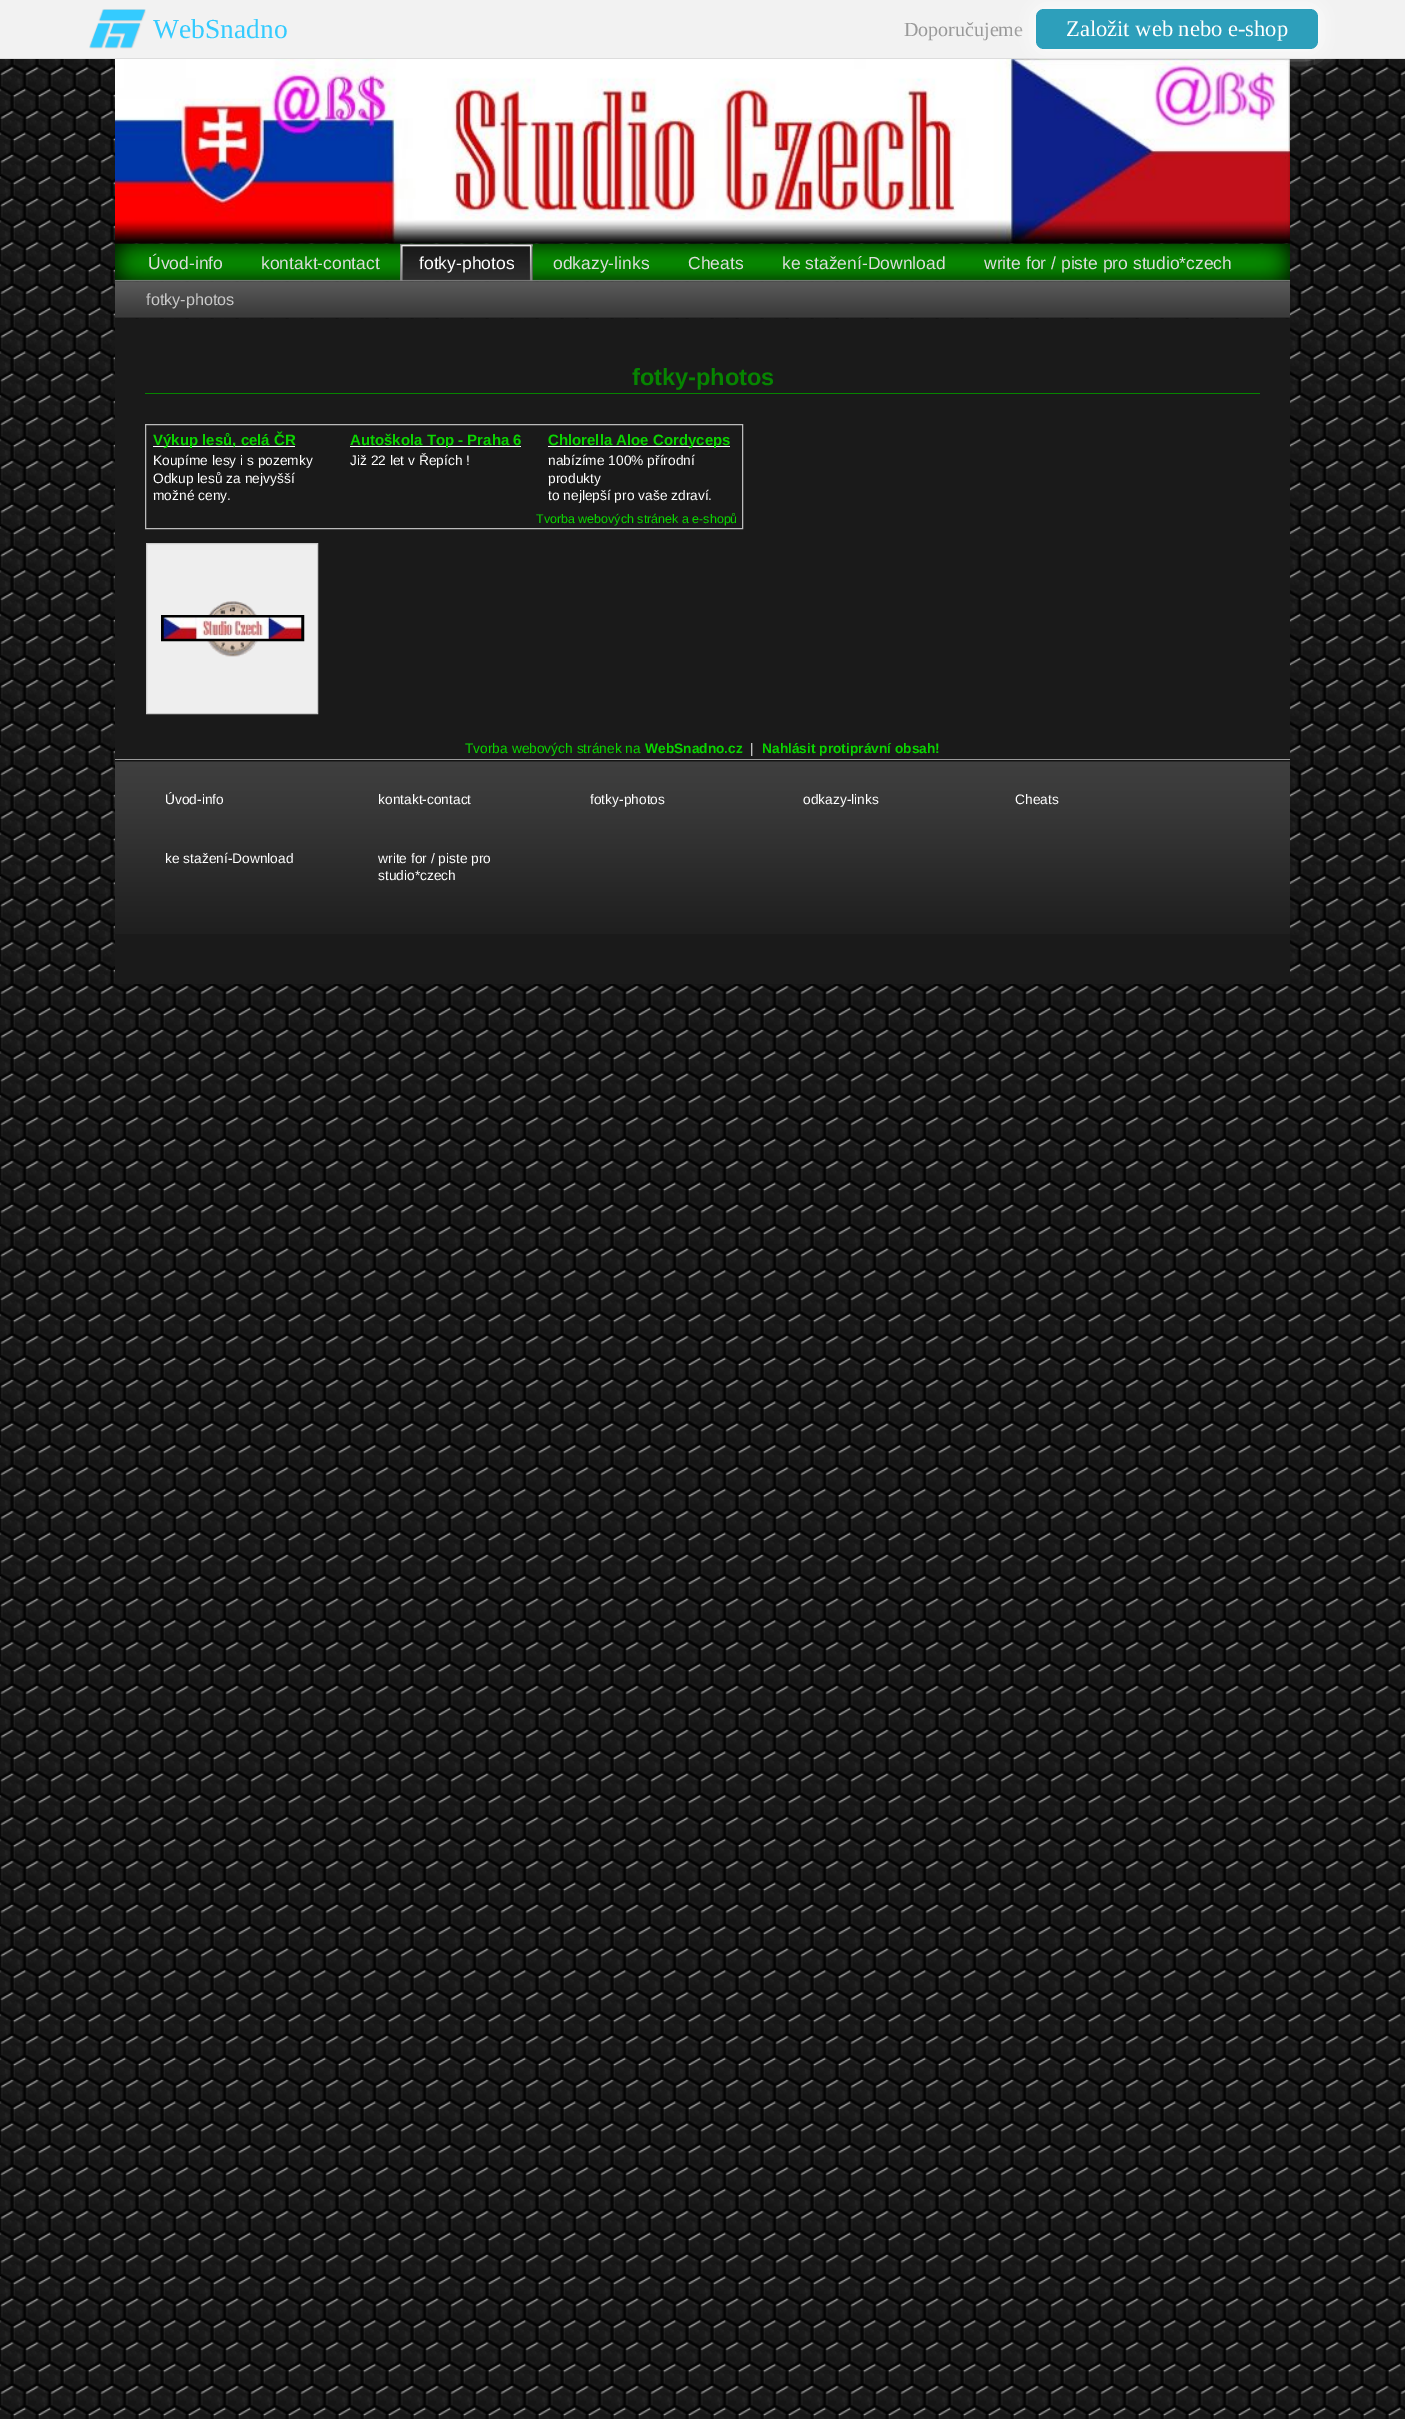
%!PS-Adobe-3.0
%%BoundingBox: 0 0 1405 2419
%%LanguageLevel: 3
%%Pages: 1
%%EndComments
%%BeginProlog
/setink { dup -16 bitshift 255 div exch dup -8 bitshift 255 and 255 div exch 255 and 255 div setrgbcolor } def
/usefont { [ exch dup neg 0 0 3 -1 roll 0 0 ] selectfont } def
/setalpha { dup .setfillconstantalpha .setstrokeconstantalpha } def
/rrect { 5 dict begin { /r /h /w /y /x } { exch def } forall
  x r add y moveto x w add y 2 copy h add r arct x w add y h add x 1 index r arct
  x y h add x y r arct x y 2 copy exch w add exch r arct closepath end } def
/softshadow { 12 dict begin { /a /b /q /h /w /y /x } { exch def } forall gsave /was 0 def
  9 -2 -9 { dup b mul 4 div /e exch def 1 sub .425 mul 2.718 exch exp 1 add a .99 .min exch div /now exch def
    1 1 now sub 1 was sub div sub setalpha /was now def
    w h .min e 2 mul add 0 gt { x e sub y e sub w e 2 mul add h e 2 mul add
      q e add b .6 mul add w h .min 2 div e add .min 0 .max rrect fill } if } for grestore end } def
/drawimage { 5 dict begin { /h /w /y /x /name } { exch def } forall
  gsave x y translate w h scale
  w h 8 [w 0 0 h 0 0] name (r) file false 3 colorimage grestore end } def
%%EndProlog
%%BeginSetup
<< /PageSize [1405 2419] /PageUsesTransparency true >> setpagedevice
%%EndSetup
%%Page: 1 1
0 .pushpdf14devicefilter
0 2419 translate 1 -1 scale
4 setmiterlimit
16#FFFFFF setink
0 0 1405 2419 rectfill
(img1.raw) 0 59 1405 2360 drawimage
16#F2F2F2 setink
0 0 1405 58 rectfill
16#DDDDDD setink
0 58 1405 1 rectfill
(img2.raw) 89 9 57 40 drawimage
/LiberationSerif-Regular 27.5 usefont
16#34CBFF setink
153 38 moveto (WebSnadno) show
/LiberationSerif-Regular 20 usefont
16#999999 setink
904 36 moveto (Doporučujeme) show
(img3.raw) 115 59 1175 185 drawimage
16#FFFFFF setink
1031 4 292 50 13 10 0.75 softshadow
16#2D9FBB setink
1036 9 282 40 8 rrect fill
/LiberationSerif-Regular 22.5 usefont
16#FFFFFF setink
1066 36 moveto (Založit web nebo e-shop) show
(img4.raw) 115 243 1175 39 drawimage
/LiberationSans-Regular 17.5 usefont
16#DCDCDC setink
148 269 moveto (Úvod-info) show
261 269 moveto (kontakt-contact) show
(img5.raw) 400 243 133 39 drawimage
(img6.raw) 526 243 7 39 drawimage
16#FFFFFF setink
419 269 moveto (fotky-photos) show
16#DCDCDC setink
[
    [(odkazy-links) 553 269]
    [(Cheats) 688 269]
    [(ke stažení-Download) 782 269]
    [(write for / piste pro studio*czech) 984 269]
] { aload pop moveto show } forall
(img7.raw) 115 281 1175 38 drawimage
/LiberationSans-Regular 16.25 usefont
16#C9C9C9 setink
146 305 moveto (fotky-photos) show
16#1A1A1A setink
115 319 1175 440 rectfill
16#068400 setink
145 393 1115 1 rectfill
/LiberationSans-Bold 23.5 usefont
632 385 moveto (fotky-photos) show
16#BBBBBB setink
145.5 424.5 597 104 rectstroke
16#FFFFFF setink
153 446 142 1 rectfill
/LiberationSans-Bold 15 usefont
16#0AD400 setink
153 445 moveto (Výkup lesů, celá ČR) show
/LiberationSans-Regular 13.75 usefont
16#FFFFFF setink
[
    [(Koupíme lesy i s pozemky) 153 465]
    [(Odkup lesů za nejvyšší) 153 483]
    [(možné ceny.) 153 500]
] { aload pop moveto show } forall
350 446 171 1 rectfill
/LiberationSans-Bold 15 usefont
16#0AD400 setink
350 445 moveto (Autoškola Top - Praha 6) show
/LiberationSans-Regular 13.75 usefont
16#FFFFFF setink
350 465 moveto (Již 22 let v Řepích !) show
548 446 182 1 rectfill
/LiberationSans-Bold 15 usefont
16#0AD400 setink
548 445 moveto (Chlorella Aloe Cordyceps) show
/LiberationSans-Regular 13.75 usefont
16#FFFFFF setink
[
    [(nabízíme 100% přírodní) 548 465]
    [(produkty) 548 483]
    [(to nejlepší pro vaše zdraví.) 548 500]
] { aload pop moveto show } forall
/LiberationSans-Regular 12.5 usefont
16#0AD400 setink
536 523 moveto (Tvorba webových stránek a e-shopů) show
16#EEEEEE setink
147 544 170 169 rectfill
(img8.raw) 207 601 51 56 drawimage
16#CCCCCC setink
146.5 543.5 171 170 rectstroke
16#000000 setink
3 setlinewidth
162.5 616.5 140 23 rectstroke
(img9.raw) 163 617 139 22 drawimage
/LiberationSans-Regular 13.75 usefont
16#0AD400 setink
465 753 moveto (Tvorba webových stránek na) show
/LiberationSans-Bold 13.75 usefont
645 753 moveto (WebSnadno.cz) show
/LiberationSans-Regular 13.75 usefont
16#FFFFFF setink
750 753 moveto (|) show
/LiberationSans-Bold 13.75 usefont
16#0AD400 setink
762 753 moveto (Nahlásit protiprávní obsah!) show
16#1A1A1A setink
115 934 1175 50 rectfill
(img10.raw) 115 759 1175 175 drawimage
/LiberationSans-Regular 13.75 usefont
16#FFFFFF setink
[
    [(Úvod-info) 165 804]
    [(kontakt-contact) 378 804]
    [(fotky-photos) 590 804]
    [(odkazy-links) 803 804]
    [(Cheats) 1015 804]
    [(ke stažení-Download) 165 863]
    [(write for / piste pro) 378 863]
    [(studio*czech) 378 880]
] { aload pop moveto show } forall
.poppdf14devicefilter showpage
%%EOF
